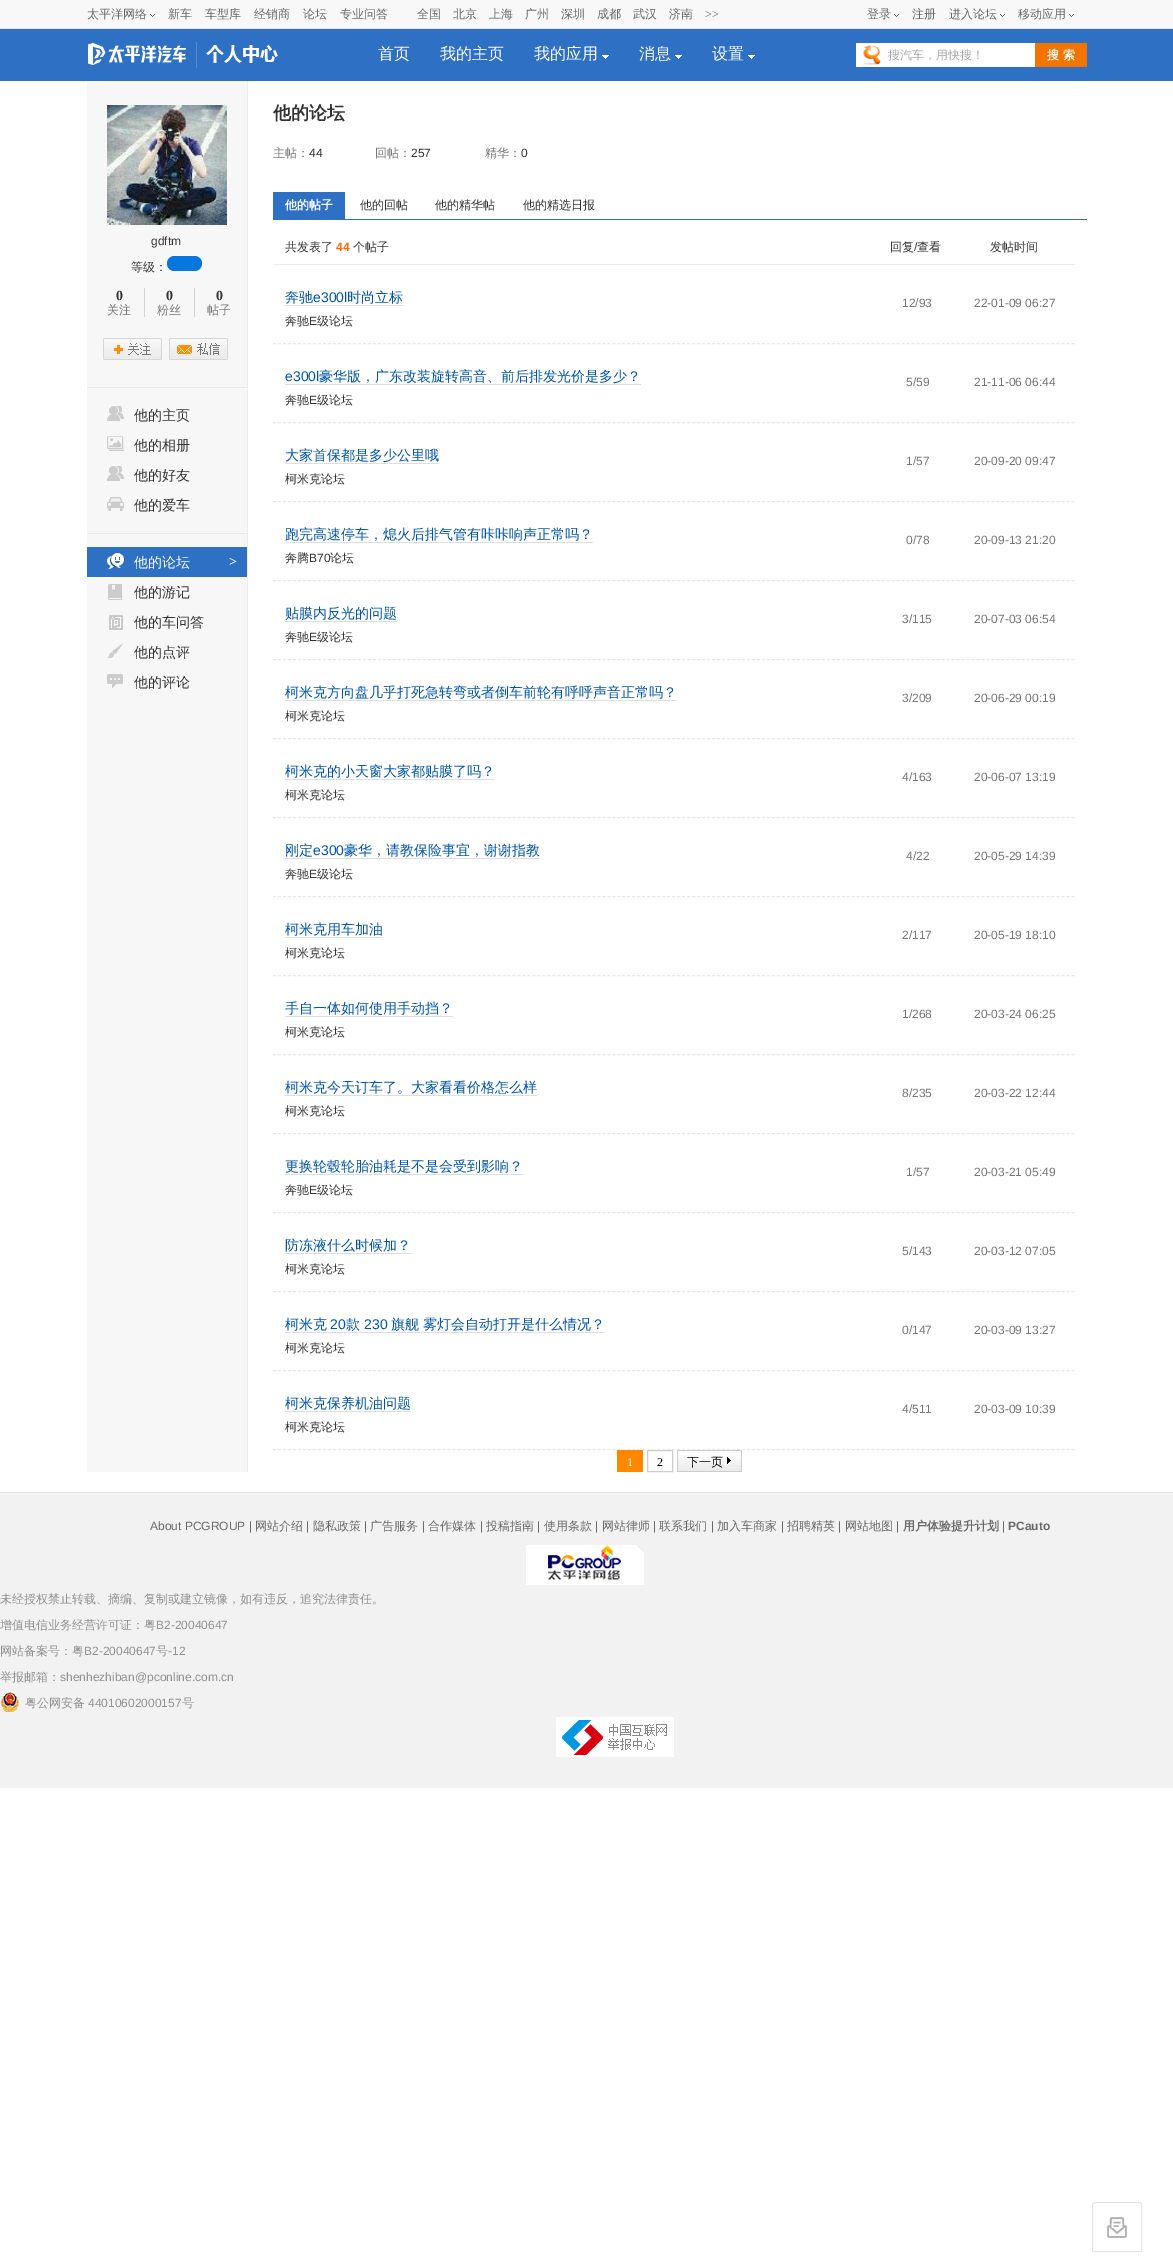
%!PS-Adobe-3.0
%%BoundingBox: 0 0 1173 2257
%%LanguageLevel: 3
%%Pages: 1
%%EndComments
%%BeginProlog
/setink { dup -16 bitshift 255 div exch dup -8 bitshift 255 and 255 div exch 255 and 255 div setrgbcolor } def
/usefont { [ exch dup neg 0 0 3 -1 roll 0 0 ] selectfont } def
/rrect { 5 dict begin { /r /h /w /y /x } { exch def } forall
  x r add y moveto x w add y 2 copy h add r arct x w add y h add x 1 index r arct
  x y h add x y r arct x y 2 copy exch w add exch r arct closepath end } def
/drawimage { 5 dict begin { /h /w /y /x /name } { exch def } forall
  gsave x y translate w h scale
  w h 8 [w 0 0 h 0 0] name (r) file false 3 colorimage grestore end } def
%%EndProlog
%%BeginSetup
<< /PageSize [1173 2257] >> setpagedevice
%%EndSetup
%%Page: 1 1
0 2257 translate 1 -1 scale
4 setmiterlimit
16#FFFFFF setink
0 0 1173 2257 rectfill
16#E3E3E3 setink
0 28 1173 1 rectfill
16#F8F8F8 setink
0 0 1173 28 rectfill
/WenQuanYiZenHei-Medium 12 usefont
16#696969 setink
87 18 moveto (太平洋网络) show
(img1.raw) 150 14 5 3 drawimage
[
    [(新车) 168 18]
    [(车型库) 205 18]
    [(经销商) 254 18]
    [(论坛) 303 18]
    [(专业问答) 340 18]
    [(全国) 417 18]
    [(北京) 453 18]
    [(上海) 489 18]
    [(广州) 525 18]
    [(深圳) 561 18]
    [(成都) 597 18]
    [(武汉) 633 18]
    [(济南) 669 18]
] { aload pop moveto show } forall
/LiberationSerif-Regular 12 usefont
705 18 moveto (>>) show
/WenQuanYiZenHei-Medium 12 usefont
867 18 moveto (登录) show
(img1.raw) 894 14 5 3 drawimage
912 18 moveto (注册) show
949 18 moveto (进入论坛) show
(img1.raw) 1000 14 5 3 drawimage
1018 18 moveto (移动应用) show
(img1.raw) 1069 14 5 3 drawimage
16#2E70C4 setink
0 29 1173 52 rectfill
(img2.raw) 88 42 190 26 drawimage
/WenQuanYiZenHei-Medium 16 usefont
16#FFFFFF setink
[
    [(首页) 378 59]
    [(我的主页) 440 59]
    [(我的应用) 534 59]
] { aload pop moveto show } forall
(img3.raw) 602 55 7 4 drawimage
639 59 moveto (消息) show
(img3.raw) 675 55 7 4 drawimage
712 59 moveto (设置) show
(img3.raw) 748 55 7 4 drawimage
856 43 179 24 rectfill
(img4.raw) 863 45 18 20 drawimage
/WenQuanYiZenHei-Medium 12 usefont
16#AAAAAA setink
888 59 moveto (搜汽车，用快搜！) show
16#F47400 setink
1035 43 52 24 rectfill
/WenQuanYiZenHei-Bold 12 usefont
16#FFFFFF setink
1047 59 moveto (搜 索) show
[
    [0 81 1173 4 16#FFFDF6]
    [87 81 160 1391 16#F7F7F7]
    [87 387 160 1 16#E9E9E9]
] { aload pop setink rectfill } forall
(img5.raw) 107 105 120 120 drawimage
/LiberationSans-Regular 12 usefont
16#333333 setink
151 245 moveto (gdftm) show
/WenQuanYiZenHei-Medium 12 usefont
131 271 moveto (等级：) show
16#0777DD setink
167 256 35 15 7.5 rrect fill
16#D2D2D2 setink
144 288 1 29 rectfill
/LiberationSerif-Bold 14 usefont
16#333333 setink
116 300 moveto (0) show
/WenQuanYiZenHei-Medium 12 usefont
16#777777 setink
107 314 moveto (关注) show
16#D2D2D2 setink
194 288 1 29 rectfill
/LiberationSerif-Bold 14 usefont
16#333333 setink
166 300 moveto (0) show
/WenQuanYiZenHei-Medium 12 usefont
16#777777 setink
157 314 moveto (粉丝) show
/LiberationSerif-Bold 14 usefont
16#333333 setink
216 300 moveto (0) show
/WenQuanYiZenHei-Medium 12 usefont
16#777777 setink
207 314 moveto (帖子) show
(img6.raw) 103 338 59 22 drawimage
(img7.raw) 169 338 59 22 drawimage
(img8.raw) 107 406 17 15 drawimage
/WenQuanYiZenHei-Medium 14 usefont
16#333333 setink
134 420 moveto (他的主页) show
(img9.raw) 107 436 17 15 drawimage
134 450 moveto (他的相册) show
(img8.raw) 107 466 17 15 drawimage
134 480 moveto (他的好友) show
(img10.raw) 107 497 17 14 drawimage
134 510 moveto (他的爱车) show
16#E9E9E9 setink
87 533 160 1 rectfill
16#2E70C4 setink
87 547 160 30 rectfill
(img11.raw) 107 553 17 16 drawimage
16#FFFFFF setink
134 567 moveto (他的论坛) show
/LiberationSerif-Bold 14 usefont
229 566 moveto (>) show
(img12.raw) 108 584 14 16 drawimage
/WenQuanYiZenHei-Medium 14 usefont
16#333333 setink
134 597 moveto (他的游记) show
(img13.raw) 109 615 14 15 drawimage
134 627 moveto (他的车问答) show
(img14.raw) 107 643 16 15 drawimage
134 657 moveto (他的点评) show
(img15.raw) 107 674 16 14 drawimage
134 687 moveto (他的评论) show
16#FFFFFF setink
248 81 839 4 rectfill
16#EDEDED setink
247 81 1 1391 rectfill
/WenQuanYiZenHei-Bold 18 usefont
16#333333 setink
273 119 moveto (他的论坛) show
/WenQuanYiZenHei-Medium 12 usefont
16#777777 setink
273 157 moveto (主帖：) show
/LiberationSans-Regular 12 usefont
16#333333 setink
309 157 moveto (44) show
/WenQuanYiZenHei-Medium 12 usefont
16#777777 setink
375 157 moveto (回帖：) show
/LiberationSans-Regular 12 usefont
16#333333 setink
411 157 moveto (257) show
/WenQuanYiZenHei-Medium 12 usefont
16#777777 setink
485 157 moveto (精华：) show
/LiberationSans-Regular 12 usefont
16#333333 setink
521 157 moveto (0) show
16#2E70C4 setink
273 219 814 1 rectfill
273 192 72 27 rectfill
/WenQuanYiZenHei-Bold 12 usefont
16#FFFFFF setink
285 209 moveto (他的帖子) show
/WenQuanYiZenHei-Medium 12 usefont
16#333333 setink
[
    [(他的回帖) 360 209]
    [(他的精华帖) 435 209]
    [(他的精选日报) 523 209]
] { aload pop moveto show } forall
16#ECECEC setink
273 264 802 1 rectfill
16#333333 setink
285 251 moveto (共发表了) show
/LiberationSans-Bold 12 usefont
16#FF6600 setink
336 251 moveto (44) show
/WenQuanYiZenHei-Medium 12 usefont
16#333333 setink
353 251 moveto (个帖子) show
890 251 moveto (回复) show
/LiberationSans-Regular 12 usefont
914 251 moveto (/) show
/WenQuanYiZenHei-Medium 12 usefont
917 251 moveto (查看) show
990 251 moveto (发帖时间) show
16#E8E8E8 setink
[3 1.99] 0 setdash
273 343.5 moveto 1075 343.5 lineto stroke
/WenQuanYiZenHei-Medium 14 usefont
16#0055AA setink
285 302 moveto (奔驰) show
16#DEDEDE setink
285 305 118 1 rectfill
/LiberationSans-Regular 14 usefont
16#0055AA setink
313 302 moveto (e300l) show
/WenQuanYiZenHei-Medium 14 usefont
347 302 moveto (时尚立标) show
/WenQuanYiZenHei-Medium 12 usefont
16#333333 setink
285 325 moveto (奔驰) show
/LiberationSans-Regular 12 usefont
309 325 moveto (E) show
/WenQuanYiZenHei-Medium 12 usefont
317 325 moveto (级论坛) show
/LiberationSans-Regular 12 usefont
16#777777 setink
902 307 moveto (12/93) show
974 307 moveto (22-01-09 06:27) show
16#E8E8E8 setink
273 422.5 moveto 1075 422.5 lineto stroke
/LiberationSans-Regular 14 usefont
16#0055AA setink
285 381 moveto (e300l) show
/WenQuanYiZenHei-Medium 14 usefont
319 381 moveto (豪华版，广东改装旋转高音、前后排发光价是多少？) show
16#DEDEDE setink
285 384 356 1 rectfill
/WenQuanYiZenHei-Medium 12 usefont
16#333333 setink
285 404 moveto (奔驰) show
/LiberationSans-Regular 12 usefont
309 404 moveto (E) show
/WenQuanYiZenHei-Medium 12 usefont
317 404 moveto (级论坛) show
/LiberationSans-Regular 12 usefont
16#777777 setink
906 386 moveto (5/59) show
974 386 moveto (21-11-06 06:44) show
16#E8E8E8 setink
273 501.5 moveto 1075 501.5 lineto stroke
/WenQuanYiZenHei-Medium 14 usefont
16#0055AA setink
285 460 moveto (大家首保都是多少公里哦) show
16#DEDEDE setink
285 463 154 1 rectfill
/WenQuanYiZenHei-Medium 12 usefont
16#333333 setink
285 483 moveto (柯米克论坛) show
/LiberationSans-Regular 12 usefont
16#777777 setink
906 465 moveto (1/57) show
974 465 moveto (20-09-20 09:47) show
16#E8E8E8 setink
273 580.5 moveto 1075 580.5 lineto stroke
/WenQuanYiZenHei-Medium 14 usefont
16#0055AA setink
285 539 moveto (跑完高速停车，熄火后排气管有咔咔响声正常吗？) show
16#DEDEDE setink
285 542 308 1 rectfill
/WenQuanYiZenHei-Medium 12 usefont
16#333333 setink
285 562 moveto (奔腾) show
/LiberationSans-Regular 12 usefont
309 562 moveto (B70) show
/WenQuanYiZenHei-Medium 12 usefont
330 562 moveto (论坛) show
/LiberationSans-Regular 12 usefont
16#777777 setink
906 544 moveto (0/78) show
974 544 moveto (20-09-13 21:20) show
16#E8E8E8 setink
273 659.5 moveto 1075 659.5 lineto stroke
/WenQuanYiZenHei-Medium 14 usefont
16#0055AA setink
285 618 moveto (贴膜内反光的问题) show
16#DEDEDE setink
285 621 112 1 rectfill
/WenQuanYiZenHei-Medium 12 usefont
16#333333 setink
285 641 moveto (奔驰) show
/LiberationSans-Regular 12 usefont
309 641 moveto (E) show
/WenQuanYiZenHei-Medium 12 usefont
317 641 moveto (级论坛) show
/LiberationSans-Regular 12 usefont
16#777777 setink
902 623 moveto (3/115) show
974 623 moveto (20-07-03 06:54) show
16#E8E8E8 setink
273 738.5 moveto 1075 738.5 lineto stroke
/WenQuanYiZenHei-Medium 14 usefont
16#0055AA setink
285 697 moveto (柯米克方向盘几乎打死急转弯或者倒车前轮有呼呼声音正常吗？) show
16#DEDEDE setink
285 700 392 1 rectfill
/WenQuanYiZenHei-Medium 12 usefont
16#333333 setink
285 720 moveto (柯米克论坛) show
/LiberationSans-Regular 12 usefont
16#777777 setink
902 702 moveto (3/209) show
974 702 moveto (20-06-29 00:19) show
16#E8E8E8 setink
273 817.5 moveto 1075 817.5 lineto stroke
/WenQuanYiZenHei-Medium 14 usefont
16#0055AA setink
285 776 moveto (柯米克的小天窗大家都贴膜了吗？) show
16#DEDEDE setink
285 779 210 1 rectfill
/WenQuanYiZenHei-Medium 12 usefont
16#333333 setink
285 799 moveto (柯米克论坛) show
/LiberationSans-Regular 12 usefont
16#777777 setink
902 781 moveto (4/163) show
974 781 moveto (20-06-07 13:19) show
16#E8E8E8 setink
273 896.5 moveto 1075 896.5 lineto stroke
/WenQuanYiZenHei-Medium 14 usefont
16#0055AA setink
285 855 moveto (刚定) show
/LiberationSans-Regular 14 usefont
313 855 moveto (e300) show
16#DEDEDE setink
285 858 255 1 rectfill
/WenQuanYiZenHei-Medium 14 usefont
16#0055AA setink
344 855 moveto (豪华，请教保险事宜，谢谢指教) show
/WenQuanYiZenHei-Medium 12 usefont
16#333333 setink
285 878 moveto (奔驰) show
/LiberationSans-Regular 12 usefont
309 878 moveto (E) show
/WenQuanYiZenHei-Medium 12 usefont
317 878 moveto (级论坛) show
/LiberationSans-Regular 12 usefont
16#777777 setink
906 860 moveto (4/22) show
974 860 moveto (20-05-29 14:39) show
16#E8E8E8 setink
273 975.5 moveto 1075 975.5 lineto stroke
/WenQuanYiZenHei-Medium 14 usefont
16#0055AA setink
285 934 moveto (柯米克用车加油) show
16#DEDEDE setink
285 937 98 1 rectfill
/WenQuanYiZenHei-Medium 12 usefont
16#333333 setink
285 957 moveto (柯米克论坛) show
/LiberationSans-Regular 12 usefont
16#777777 setink
902 939 moveto (2/117) show
974 939 moveto (20-05-19 18:10) show
16#E8E8E8 setink
273 1054.5 moveto 1075 1054.5 lineto stroke
/WenQuanYiZenHei-Medium 14 usefont
16#0055AA setink
285 1013 moveto (手自一体如何使用手动挡？) show
16#DEDEDE setink
285 1016 168 1 rectfill
/WenQuanYiZenHei-Medium 12 usefont
16#333333 setink
285 1036 moveto (柯米克论坛) show
/LiberationSans-Regular 12 usefont
16#777777 setink
902 1018 moveto (1/268) show
974 1018 moveto (20-03-24 06:25) show
16#E8E8E8 setink
273 1133.5 moveto 1075 1133.5 lineto stroke
/WenQuanYiZenHei-Medium 14 usefont
16#0055AA setink
285 1092 moveto (柯米克今天订车了。大家看看价格怎么样) show
16#DEDEDE setink
285 1095 252 1 rectfill
/WenQuanYiZenHei-Medium 12 usefont
16#333333 setink
285 1115 moveto (柯米克论坛) show
/LiberationSans-Regular 12 usefont
16#777777 setink
902 1097 moveto (8/235) show
974 1097 moveto (20-03-22 12:44) show
16#E8E8E8 setink
273 1212.5 moveto 1075 1212.5 lineto stroke
/WenQuanYiZenHei-Medium 14 usefont
16#0055AA setink
285 1171 moveto (更换轮毂轮胎油耗是不是会受到影响？) show
16#DEDEDE setink
285 1174 238 1 rectfill
/WenQuanYiZenHei-Medium 12 usefont
16#333333 setink
285 1194 moveto (奔驰) show
/LiberationSans-Regular 12 usefont
309 1194 moveto (E) show
/WenQuanYiZenHei-Medium 12 usefont
317 1194 moveto (级论坛) show
/LiberationSans-Regular 12 usefont
16#777777 setink
906 1176 moveto (1/57) show
974 1176 moveto (20-03-21 05:49) show
16#E8E8E8 setink
273 1291.5 moveto 1075 1291.5 lineto stroke
/WenQuanYiZenHei-Medium 14 usefont
16#0055AA setink
285 1250 moveto (防冻液什么时候加？) show
16#DEDEDE setink
285 1253 126 1 rectfill
/WenQuanYiZenHei-Medium 12 usefont
16#333333 setink
285 1273 moveto (柯米克论坛) show
/LiberationSans-Regular 12 usefont
16#777777 setink
902 1255 moveto (5/143) show
974 1255 moveto (20-03-12 07:05) show
16#E8E8E8 setink
273 1370.5 moveto 1075 1370.5 lineto stroke
/WenQuanYiZenHei-Medium 14 usefont
16#0055AA setink
285 1329 moveto (柯米克) show
/LiberationSans-Regular 14 usefont
330 1329 moveto (20) show
16#DEDEDE setink
285 1332 320 1 rectfill
/WenQuanYiZenHei-Medium 14 usefont
16#0055AA setink
346 1329 moveto (款) show
/LiberationSans-Regular 14 usefont
364 1329 moveto (230) show
/WenQuanYiZenHei-Medium 14 usefont
391 1329 moveto (旗舰 雾灯会自动打开是什么情况？) show
/WenQuanYiZenHei-Medium 12 usefont
16#333333 setink
285 1352 moveto (柯米克论坛) show
/LiberationSans-Regular 12 usefont
16#777777 setink
902 1334 moveto (0/147) show
974 1334 moveto (20-03-09 13:27) show
16#E8E8E8 setink
273 1449.5 moveto 1075 1449.5 lineto stroke
/WenQuanYiZenHei-Medium 14 usefont
16#0055AA setink
285 1408 moveto (柯米克保养机油问题) show
16#DEDEDE setink
285 1411 126 1 rectfill
/WenQuanYiZenHei-Medium 12 usefont
16#333333 setink
285 1431 moveto (柯米克论坛) show
/LiberationSans-Regular 12 usefont
16#777777 setink
902 1413 moveto (4/511) show
974 1413 moveto (20-03-09 10:39) show
16#FF8800 setink
617 1450 26 22 rectfill
/LiberationSerif-Regular 12 usefont
16#FFFFFF setink
627 1466 moveto (1) show
16#CCCCCC setink
[] 0 setdash
647.5 1450.5 25 21 rectstroke
16#000000 setink
657 1466 moveto (2) show
(img16.raw) 677 1450 65 22 drawimage
/WenQuanYiZenHei-Medium 12 usefont
687 1466 moveto (下一页) show
16#F2F2F2 setink
0 1493 1173 295 rectfill
16#E6E6E6 setink
0 1492 1173 1 rectfill
/LiberationSans-Regular 12 usefont
16#696969 setink
150 1530 moveto (About PCGROUP |) show
/WenQuanYiZenHei-Medium 12 usefont
255 1530 moveto (网站介绍) show
/LiberationSans-Regular 12 usefont
306 1530 moveto (|) show
/WenQuanYiZenHei-Medium 12 usefont
313 1530 moveto (隐私政策) show
/LiberationSans-Regular 12 usefont
364 1530 moveto (|) show
/WenQuanYiZenHei-Medium 12 usefont
370 1530 moveto (广告服务) show
/LiberationSans-Regular 12 usefont
422 1530 moveto (|) show
/WenQuanYiZenHei-Medium 12 usefont
428 1530 moveto (合作媒体) show
/LiberationSans-Regular 12 usefont
480 1530 moveto (|) show
/WenQuanYiZenHei-Medium 12 usefont
486 1530 moveto (投稿指南) show
/LiberationSans-Regular 12 usefont
537 1530 moveto (|) show
/WenQuanYiZenHei-Medium 12 usefont
544 1530 moveto (使用条款) show
/LiberationSans-Regular 12 usefont
595 1530 moveto (|) show
/WenQuanYiZenHei-Medium 12 usefont
602 1530 moveto (网站律师) show
/LiberationSans-Regular 12 usefont
653 1530 moveto (|) show
/WenQuanYiZenHei-Medium 12 usefont
659 1530 moveto (联系我们) show
/LiberationSans-Regular 12 usefont
711 1530 moveto (|) show
/WenQuanYiZenHei-Medium 12 usefont
717 1530 moveto (加入车商家) show
/LiberationSans-Regular 12 usefont
781 1530 moveto (|) show
/WenQuanYiZenHei-Medium 12 usefont
787 1530 moveto (招聘精英) show
/LiberationSans-Regular 12 usefont
838 1530 moveto (|) show
/WenQuanYiZenHei-Medium 12 usefont
845 1530 moveto (网站地图) show
/LiberationSans-Regular 12 usefont
896 1530 moveto (|) show
/WenQuanYiZenHei-Bold 12 usefont
903 1530 moveto (用户体验提升计划) show
/LiberationSans-Regular 12 usefont
1002 1530 moveto (|) show
/LiberationSans-Bold 12 usefont
1008 1530 moveto (PCauto) show
(img17.raw) 526 1545 118 40 drawimage
/WenQuanYiZenHei-Medium 12 usefont
16#919191 setink
0 1603 moveto (未经授权禁止转载、摘编、复制或建立镜像，如有违反，追究法律责任。) show
0 1629 moveto (增值电信业务经营许可证：粤) show
/LiberationSans-Regular 12 usefont
156 1629 moveto (B2-20040647) show
/WenQuanYiZenHei-Medium 12 usefont
0 1655 moveto (网站备案号：粤) show
/LiberationSans-Regular 12 usefont
84 1655 moveto (B2-20040647) show
/WenQuanYiZenHei-Medium 12 usefont
156 1655 moveto (号) show
/LiberationSans-Regular 12 usefont
168 1655 moveto (-12) show
/WenQuanYiZenHei-Medium 12 usefont
0 1681 moveto (举报邮箱：) show
/LiberationSans-Regular 12 usefont
60 1681 moveto (shenhezhiban@pconline.com.cn) show
(img18.raw) 1 1692 18 20 drawimage
/WenQuanYiZenHei-Medium 12 usefont
25 1707 moveto (粤公网安备) show
/LiberationSans-Regular 12 usefont
88 1707 moveto (44010602000157) show
/WenQuanYiZenHei-Medium 12 usefont
182 1707 moveto (号) show
(img19.raw) 556 1717 118 40 drawimage
16#E5E5E5 setink
1095 2202.5 moveto 1139 2202.5 lineto 1140.5 2202.5 1141.5 2203.5 1141.5 2205 curveto 1141.5 2251.5 lineto 1092.5 2251.5 lineto 1092.5 2205 lineto 1092.5 2203.5 1093.5 2202.5 1095 2202.5 curveto closepath stroke
(img20.raw) 1107 2217 20 21 drawimage
showpage
%%EOF
